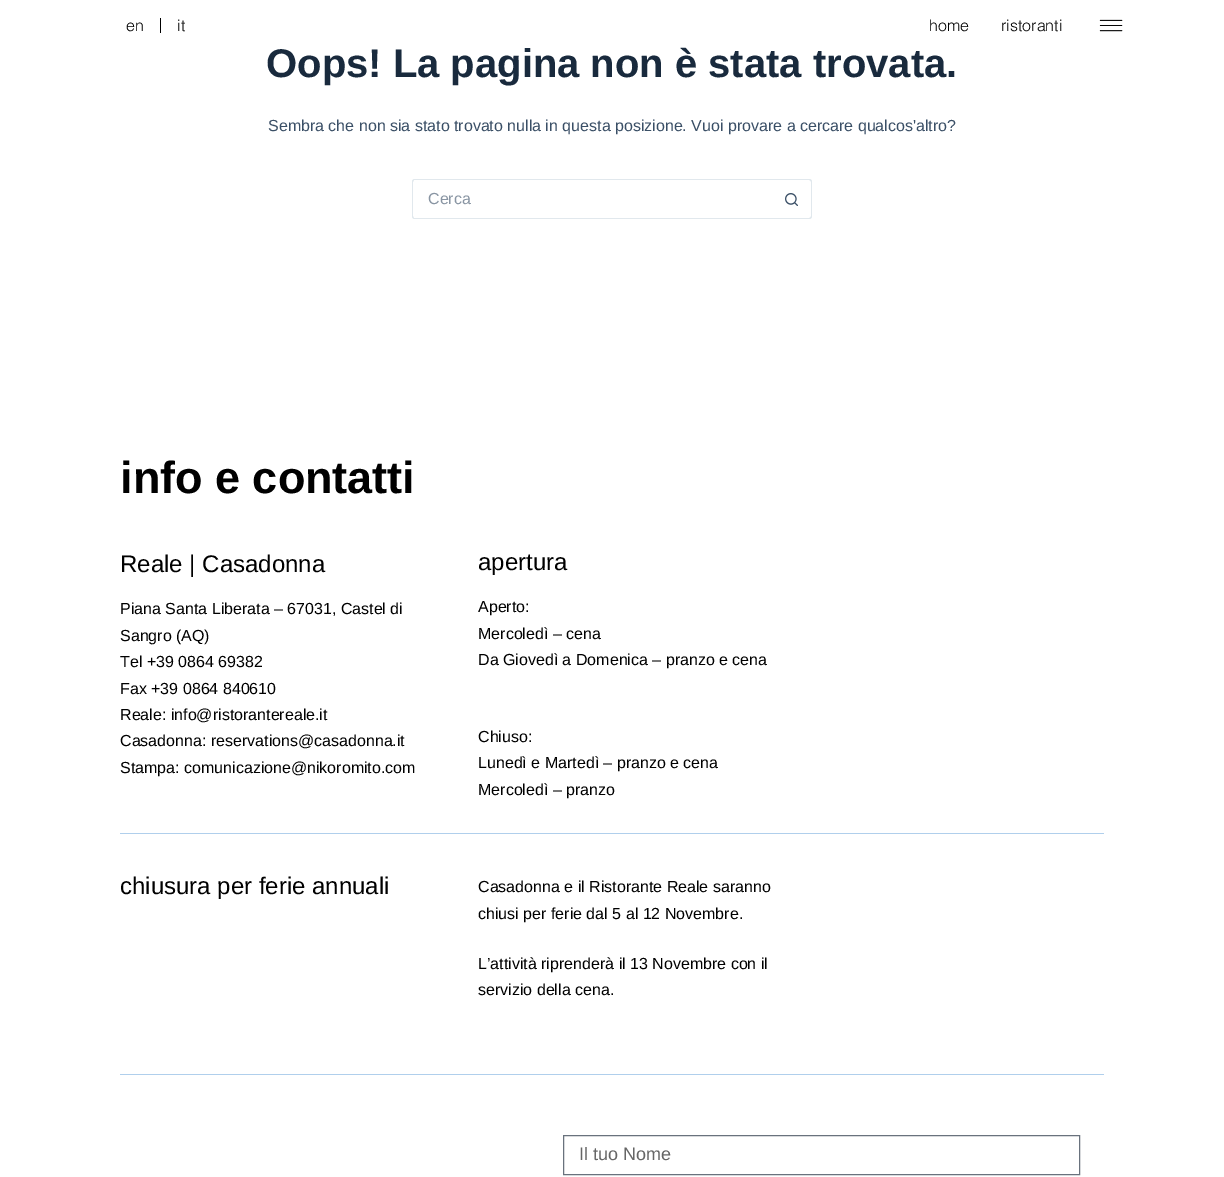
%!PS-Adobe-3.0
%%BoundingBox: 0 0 1224 1177
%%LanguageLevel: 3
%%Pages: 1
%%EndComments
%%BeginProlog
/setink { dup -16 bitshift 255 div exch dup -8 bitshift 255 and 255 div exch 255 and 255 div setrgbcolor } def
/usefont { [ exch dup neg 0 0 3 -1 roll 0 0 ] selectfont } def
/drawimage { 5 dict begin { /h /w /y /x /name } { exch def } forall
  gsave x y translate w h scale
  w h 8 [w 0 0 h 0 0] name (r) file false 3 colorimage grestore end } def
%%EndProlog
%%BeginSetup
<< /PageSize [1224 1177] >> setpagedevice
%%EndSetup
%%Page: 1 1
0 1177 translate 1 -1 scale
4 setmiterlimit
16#FFFFFF setink
0 0 1224 1177 rectfill
/Helvetica-Light 16 usefont
16#000000 setink
126 31 moveto (en) show
160 18 1 15 rectfill
[
    [(it) 177 31]
    [(home) 929 31]
    [(ristoranti) 1001 31]
] { aload pop moveto show } forall
(img1.raw) 1099 19 24 13 drawimage
/LiberationSans-Bold 40 usefont
16#192A3D setink
266 77 moveto (Oops! La pagina non è stata trovata.) show
/LiberationSans-Regular 16 usefont
16#3A4F66 setink
268 131 moveto (Sembra che non sia stato trovato nulla in questa posizione. Vuoi provare a cercare qualcos'altro?) show
16#E1E8ED setink
415 179 moveto 772 179 lineto 772 219 lineto 415 219 lineto 413 219 412 218 412 216 curveto 412 182 lineto 412 180 413 179 415 179 curveto closepath 415 180 moveto 772 180 lineto 772 218 lineto 414 218 lineto 412 216 413 211 413 210 curveto 413 182 lineto 414 180 lineto closepath eofill
16#8995A3 setink
428 204 moveto (Cerca) show
16#E1E8ED setink
772 179 moveto 809 179 lineto 811 179 812 180 812 182 curveto 812 216 lineto 812 218 811 219 809 219 curveto 772 219 lineto closepath 772 180 moveto 809 180 lineto 810 180 811 181 811 182 curveto 811 216 lineto 811 217 810 218 809 218 curveto 772 218 lineto closepath eofill
(img2.raw) 785 193 13 13 drawimage
/LiberationSans-Bold 45 usefont
16#000000 setink
120 493 moveto (info e contatti) show
/LiberationSans-Regular 24 usefont
120 572 moveto (Reale | Casadonna) show
/LiberationSans-Regular 16 usefont
[
    [(Piana Santa Liberata – 67031, Castel di) 120 614]
    [(Sangro \(AQ\)) 120 641]
    [(Tel +39 0864 69382) 120 667]
    [(Fax +39 0864 840610) 120 694]
    [(Reale: info@ristorantereale.it) 120 720]
    [(Casadonna: reservations@casadonna.it) 120 746]
    [(Stampa: comunicazione@nikoromito.com) 120 773]
] { aload pop moveto show } forall
/LiberationSans-Regular 24 usefont
478 570 moveto (apertura) show
/LiberationSans-Regular 16 usefont
[
    [(Aperto:) 478 612]
    [(Mercoledì – cena) 478 639]
    [(Da Giovedì a Domenica – pranzo e cena) 478 665]
    [(Chiuso:) 478 742]
    [(Lunedì e Martedì – pranzo e cena) 478 768]
    [(Mercoledì – pranzo) 478 795]
] { aload pop moveto show } forall
16#B0CFEC setink
120 833 984 1 rectfill
/LiberationSans-Regular 24 usefont
16#000000 setink
120 894 moveto (chiusura per ferie annuali) show
/LiberationSans-Regular 16 usefont
[
    [(Casadonna e il Ristorante Reale saranno) 478 892]
    [(chiusi per ferie dal 5 al 12 Novembre.) 478 919]
    [(L’attività riprenderà il 13 Novembre con il) 478 969]
    [(servizio della cena.) 478 995]
] { aload pop moveto show } forall
16#B0CFEC setink
120 1074 984 1 rectfill
16#69727D setink
563.5 1135.5 516 39 rectstroke
/LiberationSans-Regular 18 usefont
16#666666 setink
579 1160 moveto (Il tuo Nome) show
showpage
%%EOF
